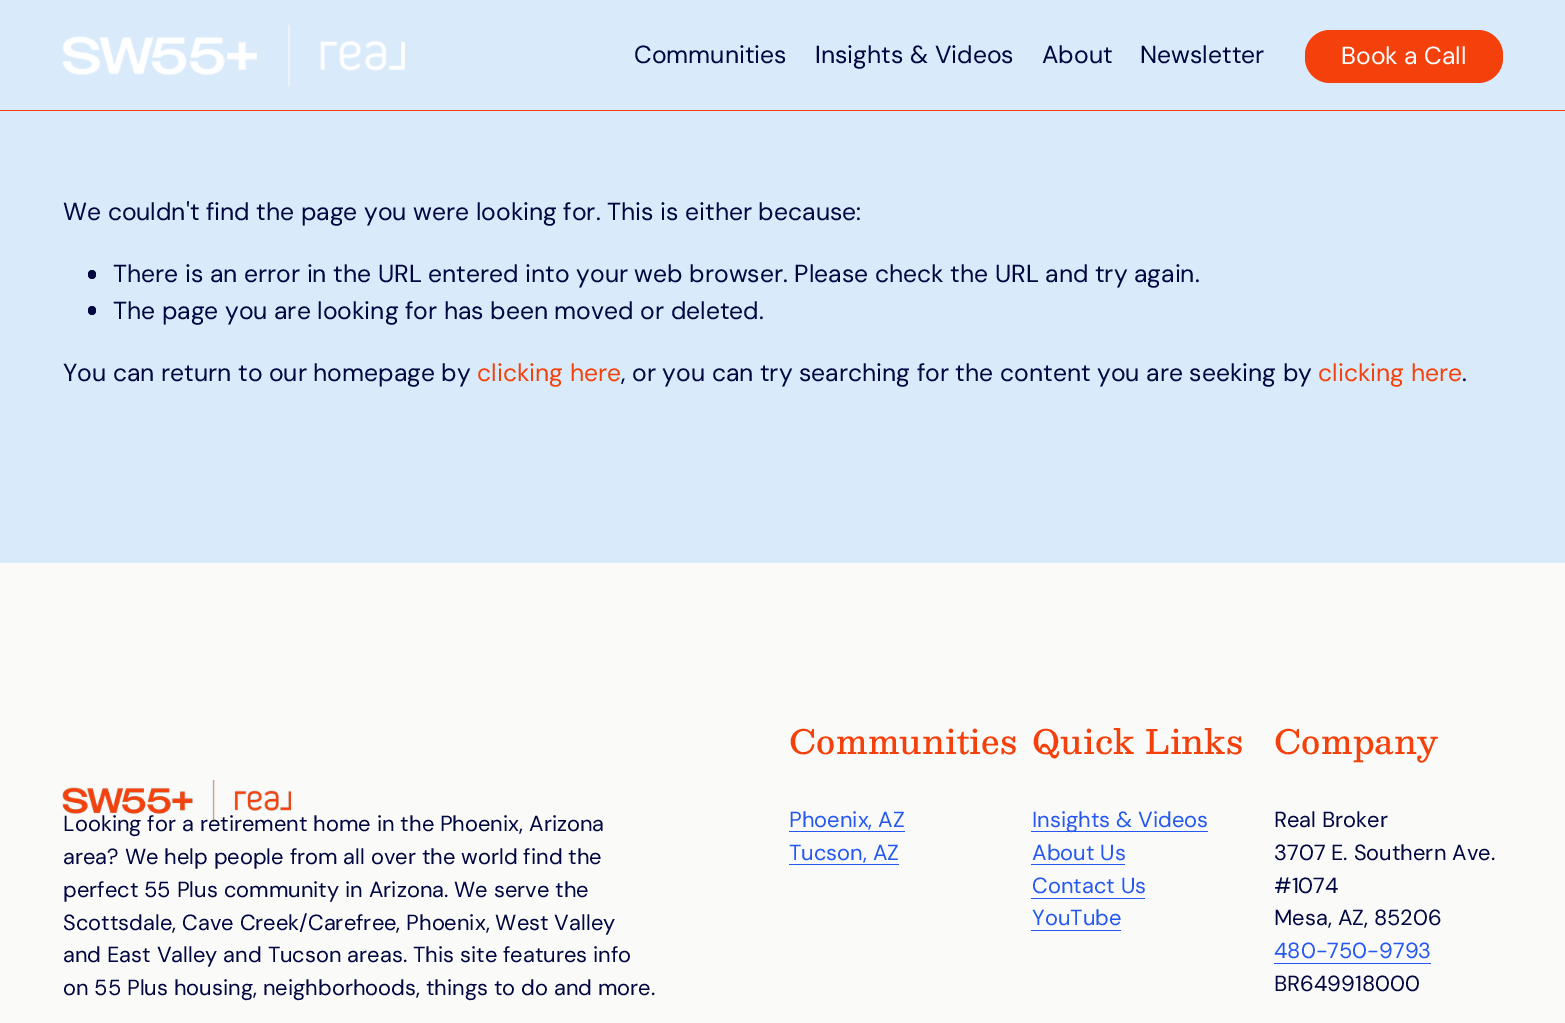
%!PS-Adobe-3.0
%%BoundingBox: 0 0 1565 1023
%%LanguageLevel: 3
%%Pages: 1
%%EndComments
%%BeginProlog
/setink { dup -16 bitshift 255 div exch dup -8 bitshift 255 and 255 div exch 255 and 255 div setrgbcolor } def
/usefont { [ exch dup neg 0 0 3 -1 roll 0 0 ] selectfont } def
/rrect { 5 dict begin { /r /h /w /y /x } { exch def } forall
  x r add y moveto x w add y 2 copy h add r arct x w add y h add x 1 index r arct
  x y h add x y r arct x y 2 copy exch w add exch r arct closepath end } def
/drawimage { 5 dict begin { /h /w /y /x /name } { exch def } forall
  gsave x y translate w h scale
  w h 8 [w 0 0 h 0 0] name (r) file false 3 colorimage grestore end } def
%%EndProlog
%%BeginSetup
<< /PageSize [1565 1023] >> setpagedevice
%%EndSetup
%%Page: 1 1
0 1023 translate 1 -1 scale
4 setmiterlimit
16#D9EAFA setink
0 0 1565 1023 rectfill
(img1.raw) 62 25 343 62 drawimage
/DMSans-Regular 24.7 usefont
16#00063F setink
[
    [(Communities) 634 63]
    [(Insights & Videos) 815 63]
    [(About) 1042 63]
    [(Newsletter) 1140 63]
] { aload pop moveto show } forall
16#F4410B setink
1305 30 198 53 25 rrect fill
16#FFFFFF setink
1341 64 moveto (Book a Call) show
16#F4410B setink
0 110 1565 1 rectfill
16#00063F setink
63 220 moveto (We couldn't find the page you were looking for. This is either because:) show
88 270 8 9 4 rrect fill
113 282 moveto (There is an error in the URL entered into your web browser. Please check the URL and try again.) show
88 306 8 9 4 rrect fill
113 319 moveto (The page you are looking for has been moved or deleted.) show
63 381 moveto (You can return to our homepage by) show
16#F4410B setink
477 381 moveto (clicking here) show
16#00063F setink
621 381 moveto (, or you can try searching for the content you are seeking by) show
16#F4410B setink
1318 381 moveto (clicking here) show
16#00063F setink
1462 381 moveto (.) show
16#FAFAF9 setink
0 563 1565 460 rectfill
(img2.raw) 62 780 230 42 drawimage
/Besley-Medium 33.25 usefont
16#F4410B setink
789 754 moveto 0.25 0 (Communities) ashow
/DMSans-Regular 21.9 usefont
16#2558F1 setink
789 827 moveto (Phoenix, AZ) show
789 831 116 1 rectfill
789 860 moveto (Tucson, AZ) show
789 864 110 1 rectfill
/Besley-Medium 33.25 usefont
16#F4410B setink
1032 754 moveto 0.25 0 (Quick Links) ashow
16#2558F1 setink
1031 831 177 1 rectfill
/DMSans-Regular 21.9 usefont
1032 827 moveto (Insights & Videos) show
1032 860 moveto (About Us) show
1031 864 94 1 rectfill
1032 893 moveto (Contact Us) show
1031 898 114 1 rectfill
1032 925 moveto (YouTube) show
1031 930 90 1 rectfill
/Besley-Medium 33.25 usefont
16#F4410B setink
1274 754 moveto 0.25 0 (Company) ashow
/DMSans-Regular 21.9 usefont
16#00063F setink
[
    [(Real Broker) 1274 827]
    [(3707 E. Southern Ave.) 1274 860]
    [(#1074) 1274 893]
    [(Mesa, AZ, 85206) 1274 925]
] { aload pop moveto show } forall
16#2558F1 setink
1274 958 moveto (480-750-9793) show
1274 963 157 1 rectfill
16#00063F setink
[
    [(BR649918000) 1274 991]
    [(Looking for a retirement home in the Phoenix, Arizona) 63 831]
    [(area? We help people from all over the world find the) 63 864]
    [(perfect 55 Plus community in Arizona. We serve the) 63 897]
    [(Scottsdale, Cave Creek/Carefree, Phoenix, West Valley) 63 930]
    [(and East Valley and Tucson areas. This site features info) 63 962]
    [(on 55 Plus housing, neighborhoods, things to do and more.) 63 995]
] { aload pop moveto show } forall
showpage
%%EOF
